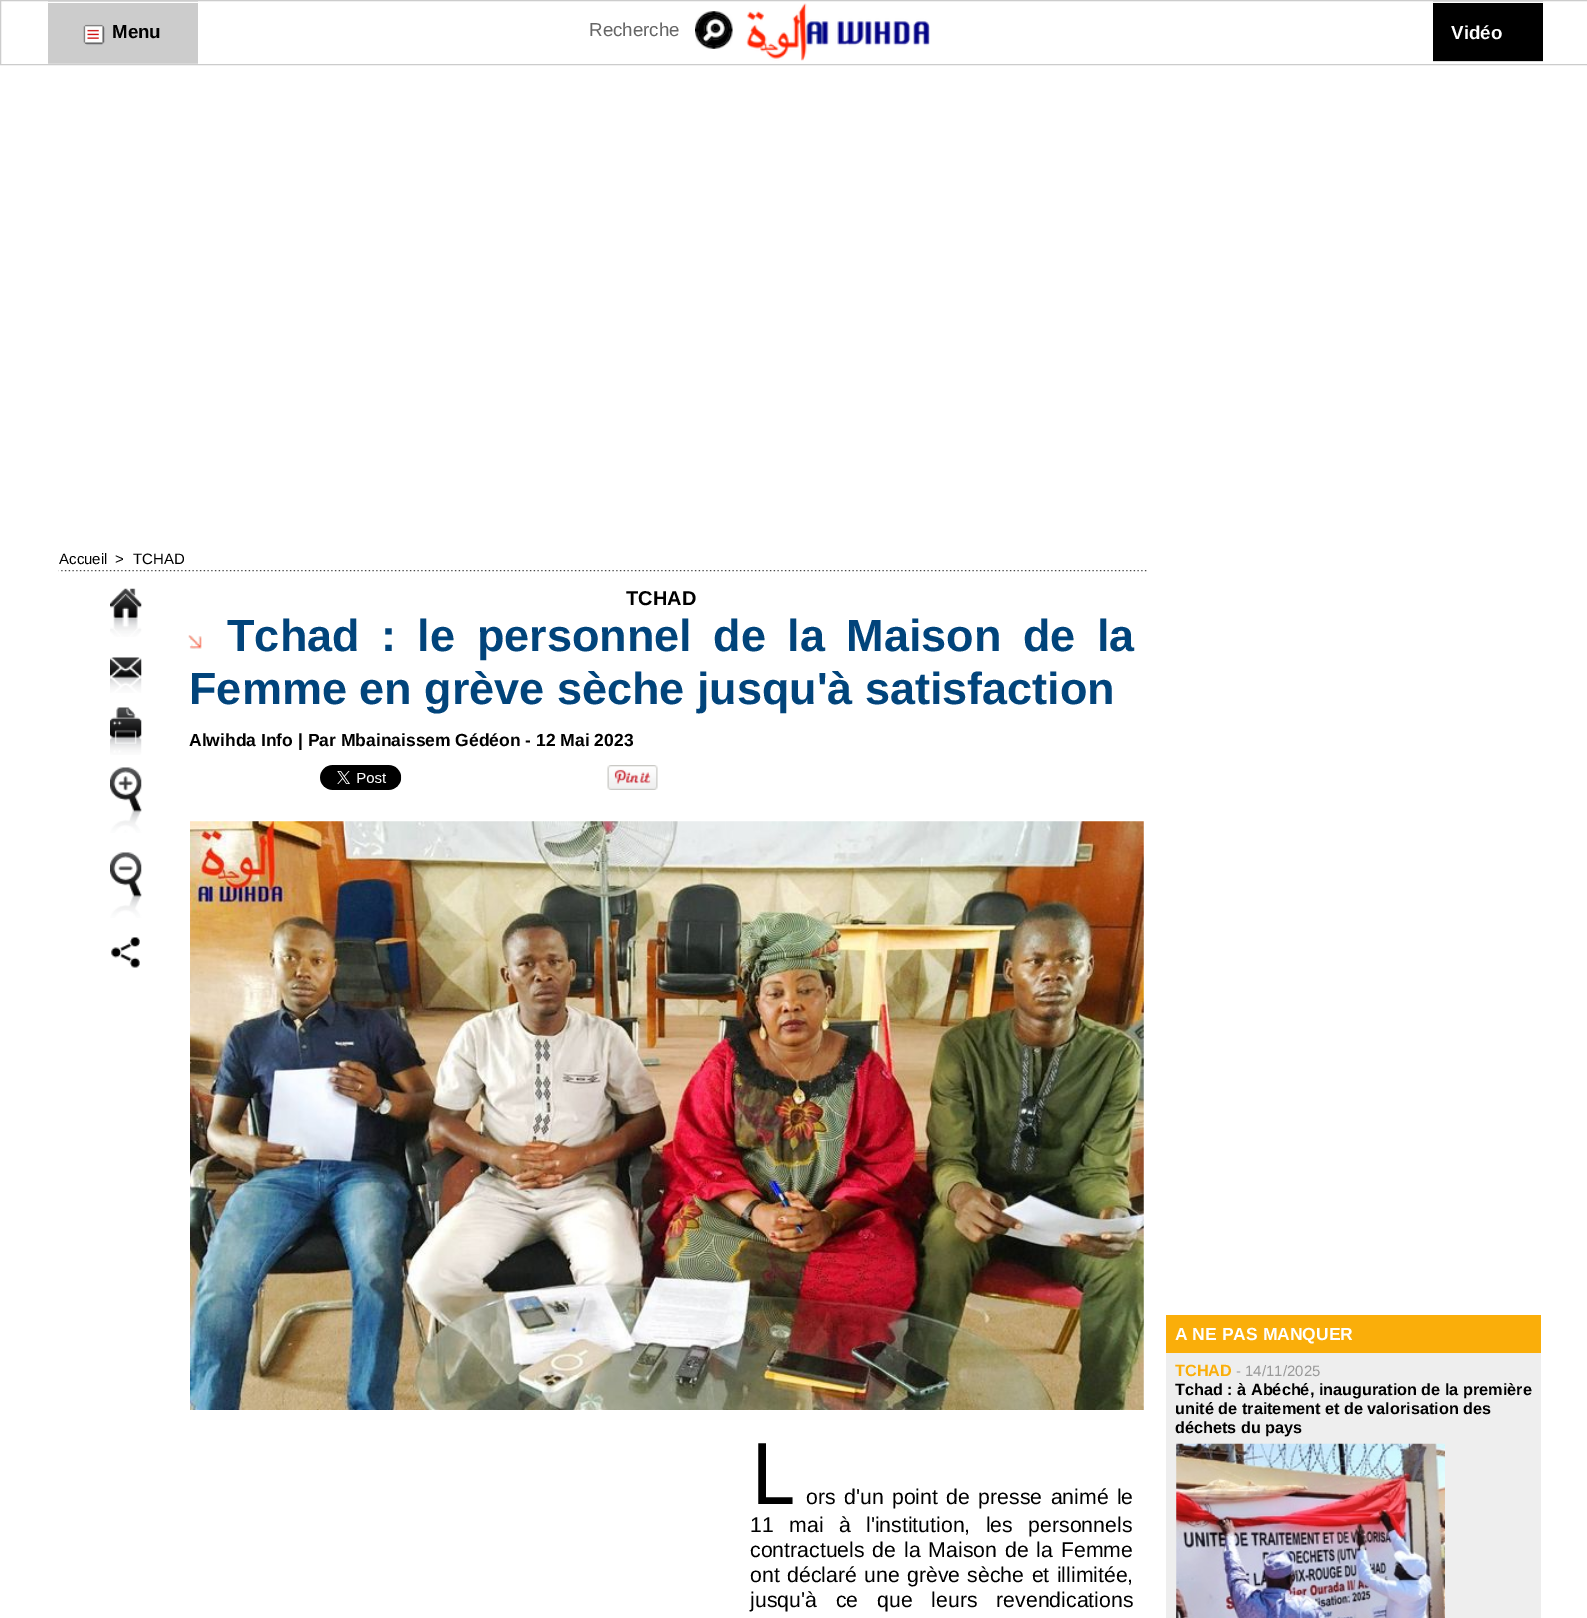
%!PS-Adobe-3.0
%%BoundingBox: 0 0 1587 1618
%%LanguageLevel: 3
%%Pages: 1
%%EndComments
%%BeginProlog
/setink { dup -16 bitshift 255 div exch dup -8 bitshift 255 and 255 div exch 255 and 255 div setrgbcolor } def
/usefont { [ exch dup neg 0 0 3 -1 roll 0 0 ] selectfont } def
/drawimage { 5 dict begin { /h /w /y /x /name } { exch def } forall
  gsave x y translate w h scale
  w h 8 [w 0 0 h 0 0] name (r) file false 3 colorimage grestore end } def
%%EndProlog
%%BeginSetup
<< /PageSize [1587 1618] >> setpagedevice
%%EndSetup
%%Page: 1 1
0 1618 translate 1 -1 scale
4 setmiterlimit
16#FFFFFF setink
0 0 1587 1618 rectfill
16#CCCCCC setink
0.5 0.5 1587 64 rectstroke
[
    [48 1 150 1 16#D9D9D9]
    [48 63 150 1 16#D9D9D9]
    [48 3 150 60 16#CCCCCC]
] { aload pop setink rectfill } forall
(img1.raw) 83 24 22 21 drawimage
/LiberationSans-Bold 18.75 usefont
16#000000 setink
112 38 moveto (Menu) show
(img2.raw) 695 11 38 38 drawimage
/LiberationSans-Regular 18.75 usefont
16#666666 setink
589 36 moveto (Recherche) show
(img3.raw) 746 3 184 58 drawimage
[
    [1433 1 110 1 16#D9D9D9]
    [1433 61 110 1 16#D9D9D9]
    [1433 3 110 58 16#000000]
] { aload pop setink rectfill } forall
/LiberationSans-Bold 18.75 usefont
16#FFFFFF setink
1451 39 moveto (Vidéo) show
/LiberationSans-Regular 15 usefont
16#000000 setink
[
    [(Accueil) 59 564]
    [(>) 115 564]
    [(TCHAD) 133 564]
] { aload pop moveto show } forall
(img4.raw) 58 570 1089 2 drawimage
(img5.raw) 110 588 32 49 drawimage
(img6.raw) 110 657 32 36 drawimage
(img7.raw) 110 707 32 48 drawimage
(img8.raw) 110 767 32 66 drawimage
(img9.raw) 110 852 32 66 drawimage
(img10.raw) 111 937 29 31 drawimage
/LiberationSans-Bold 20 usefont
626 605 moveto (TCHAD) show
(img11.raw) 188 635 14 14 drawimage
/LiberationSans-Bold 45 usefont
16#01447B setink
227 651 moveto 9 0 32 (Tchad : le personnel de la Maison de la) widthshow
189 704 moveto (Femme en grève sèche jusqu'à satisfaction) show
/LiberationSans-Bold 17.5 usefont
16#000000 setink
189 746 moveto (Alwihda Info | Par Mbainaissem Gédéon - 12 Mai 2023) show
(img12.raw) 320 765 82 25 drawimage
(img13.raw) 607 765 51 25 drawimage
(img14.raw) 190 821 954 589 drawimage
/NotoSans-Regular 85 usefont
750 1504 moveto (L) show
/LiberationSans-Regular 21.25 usefont
806 1504 moveto 2.5 0 32 (ors d'un point de presse animé le) widthshow
750 1532 moveto 9.5 0 32 (11 mai à l'institution, les personnels) widthshow
750 1557 moveto 2 0 32 (contractuels de la Maison de la Femme) widthshow
750 1582 moveto 1.5 0 32 (ont déclaré une grève sèche et illimitée,) widthshow
750 1607 moveto 13 0 32 (jusqu'à ce que leurs revendications) widthshow
16#FAAE0A setink
1166 1315 375 38 rectfill
/LiberationSans-Bold 17.5 usefont
16#FFFFFF setink
1175 1340 moveto (A NE PAS MANQUER) show
16#EEEEEE setink
1166 1353 375 265 rectfill
/LiberationSans-Bold 16.25 usefont
16#FAAE0A setink
1175 1376 moveto (TCHAD) show
/LiberationSans-Regular 15 usefont
16#999999 setink
1236 1376 moveto (- 14/11/2025) show
/LiberationSans-Bold 16.25 usefont
16#000000 setink
[
    [(Tchad : à Abéché, inauguration de la première) 1175 1395]
    [(unité de traitement et de valorisation des) 1175 1414]
    [(déchets du pays) 1175 1433]
] { aload pop moveto show } forall
(img15.raw) 1176 1443 269 175 drawimage
showpage
%%EOF
